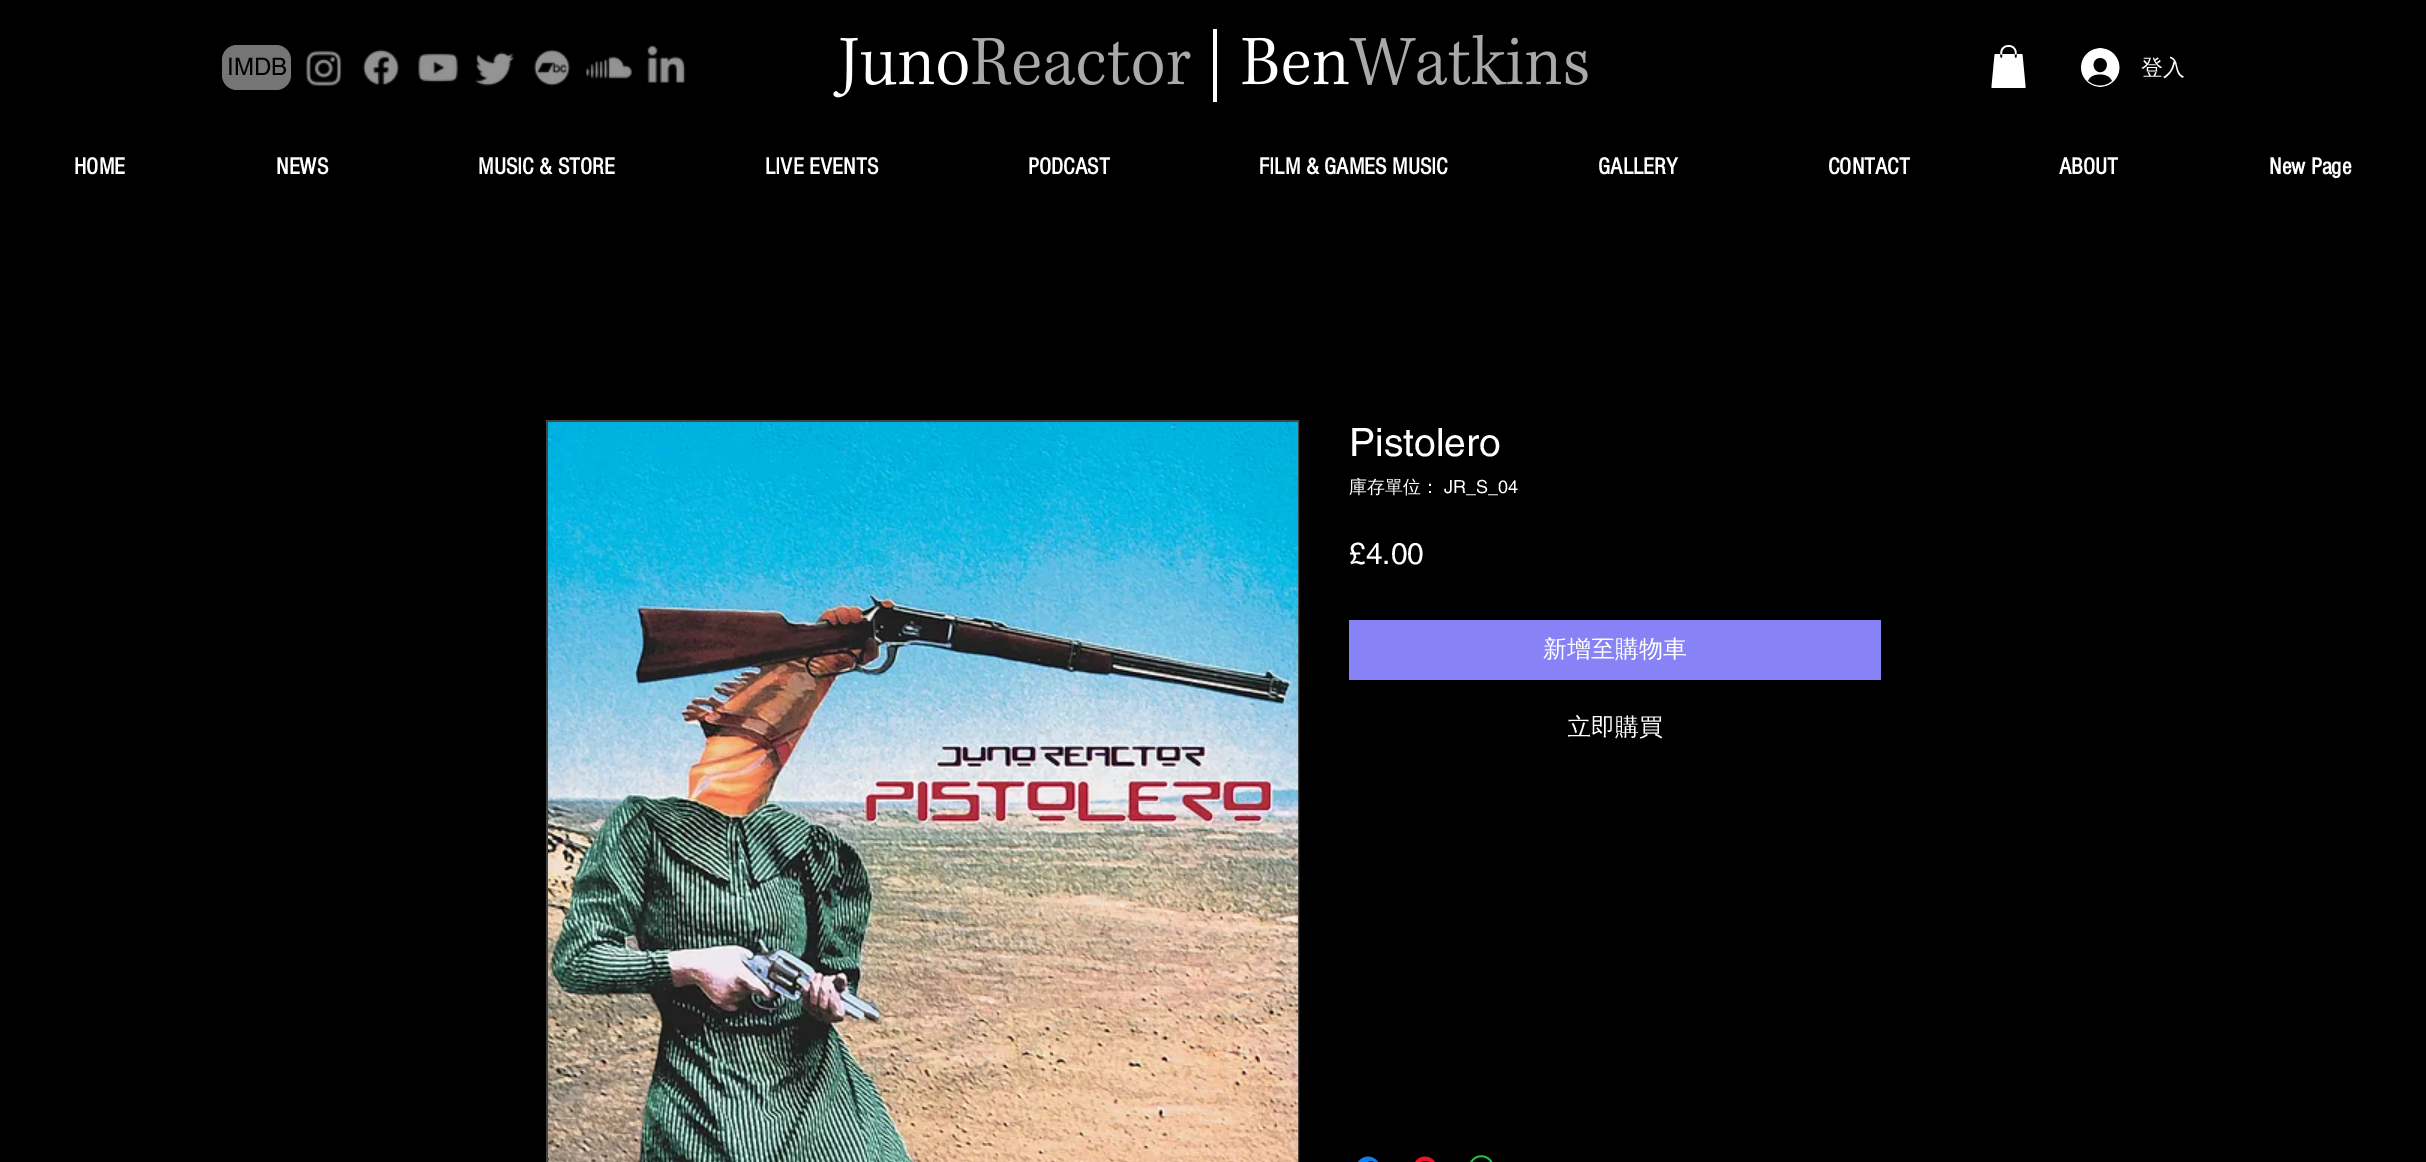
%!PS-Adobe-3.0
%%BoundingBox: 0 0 2426 1162
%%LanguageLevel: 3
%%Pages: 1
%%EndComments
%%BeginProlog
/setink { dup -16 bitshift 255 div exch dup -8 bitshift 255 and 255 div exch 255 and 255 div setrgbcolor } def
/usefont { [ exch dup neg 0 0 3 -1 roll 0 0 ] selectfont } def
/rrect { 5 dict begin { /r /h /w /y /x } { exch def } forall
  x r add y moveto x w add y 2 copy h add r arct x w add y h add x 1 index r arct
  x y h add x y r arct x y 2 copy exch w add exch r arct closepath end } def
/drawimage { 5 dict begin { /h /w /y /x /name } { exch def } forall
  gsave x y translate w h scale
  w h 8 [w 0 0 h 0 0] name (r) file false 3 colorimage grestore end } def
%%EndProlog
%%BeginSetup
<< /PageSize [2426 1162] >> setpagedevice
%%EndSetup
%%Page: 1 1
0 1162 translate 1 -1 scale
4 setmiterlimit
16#000000 setink
0 0 2426 1162 rectfill
16#757575 setink
222 45 69 45 15 rrect fill
/helvetica-Regular 24 usefont
16#000000 setink
227 75 moveto (IMDB) show
(img1.raw) 305 50 37 36 drawimage
(img2.raw) 362 49 38 37 drawimage
(img3.raw) 418 53 40 30 drawimage
(img4.raw) 475 52 40 34 drawimage
(img5.raw) 533 49 38 37 drawimage
(img6.raw) 586 56 46 23 drawimage
(img7.raw) 647 45 39 38 drawimage
(img8.raw) 833 37 135 61 drawimage
(img9.raw) 972 37 219 48 drawimage
16#FFFFFF setink
1213 29 4 73 rectfill
(img10.raw) 1242 37 107 48 drawimage
(img11.raw) 1349 34 239 51 drawimage
(img12.raw) 1991 45 35 43 drawimage
(img13.raw) 2081 48 39 39 drawimage
/WenQuanYiZenHei-Medium 22 usefont
2141 75 moveto (登入) show
/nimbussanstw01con-Bold 24 usefont
[
    [(HOME) 74 174]
    [(NEWS) 276 174]
    [(MUSIC & STORE) 478 174]
    [(LIVE EVENTS) 765 174]
    [(PODCAST) 1028 174]
    [(FILM & GAMES MUSIC) 1259 174]
    [(GALLERY) 1598 174]
    [(CONTACT) 1828 174]
    [(ABOUT) 2059 174]
    [(New Page) 2269 174]
] { aload pop moveto show } forall
16#464545 setink
2 setlinewidth
547 421 751 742 rectstroke
(img14.raw) 548 422 750 740 drawimage
/helvetica-Regular 39 usefont
16#FFFFFF setink
1349 456 moveto (Pistolero) show
/WenQuanYiZenHei-Medium 18 usefont
1349 493 moveto (庫存單位：) show
/helvetica-Regular 18 usefont
1444 493 moveto (JR_S_04) show
/helvetica-Regular 30 usefont
1349 564 moveto (£4.00) show
16#8782F6 setink
1349 620 532 60 rectfill
/WenQuanYiZenHei-Medium 24 usefont
16#FFFFFF setink
1543 657 moveto (新增至購物車) show
gsave
1568 713 96 30 rectclip
1567 735 moveto (立即購買) show
grestore
(img15.raw) 1358 1156 20 6 drawimage
(img16.raw) 1415 1156 20 6 drawimage
(img17.raw) 1470 1155 23 7 drawimage
showpage
%%EOF
